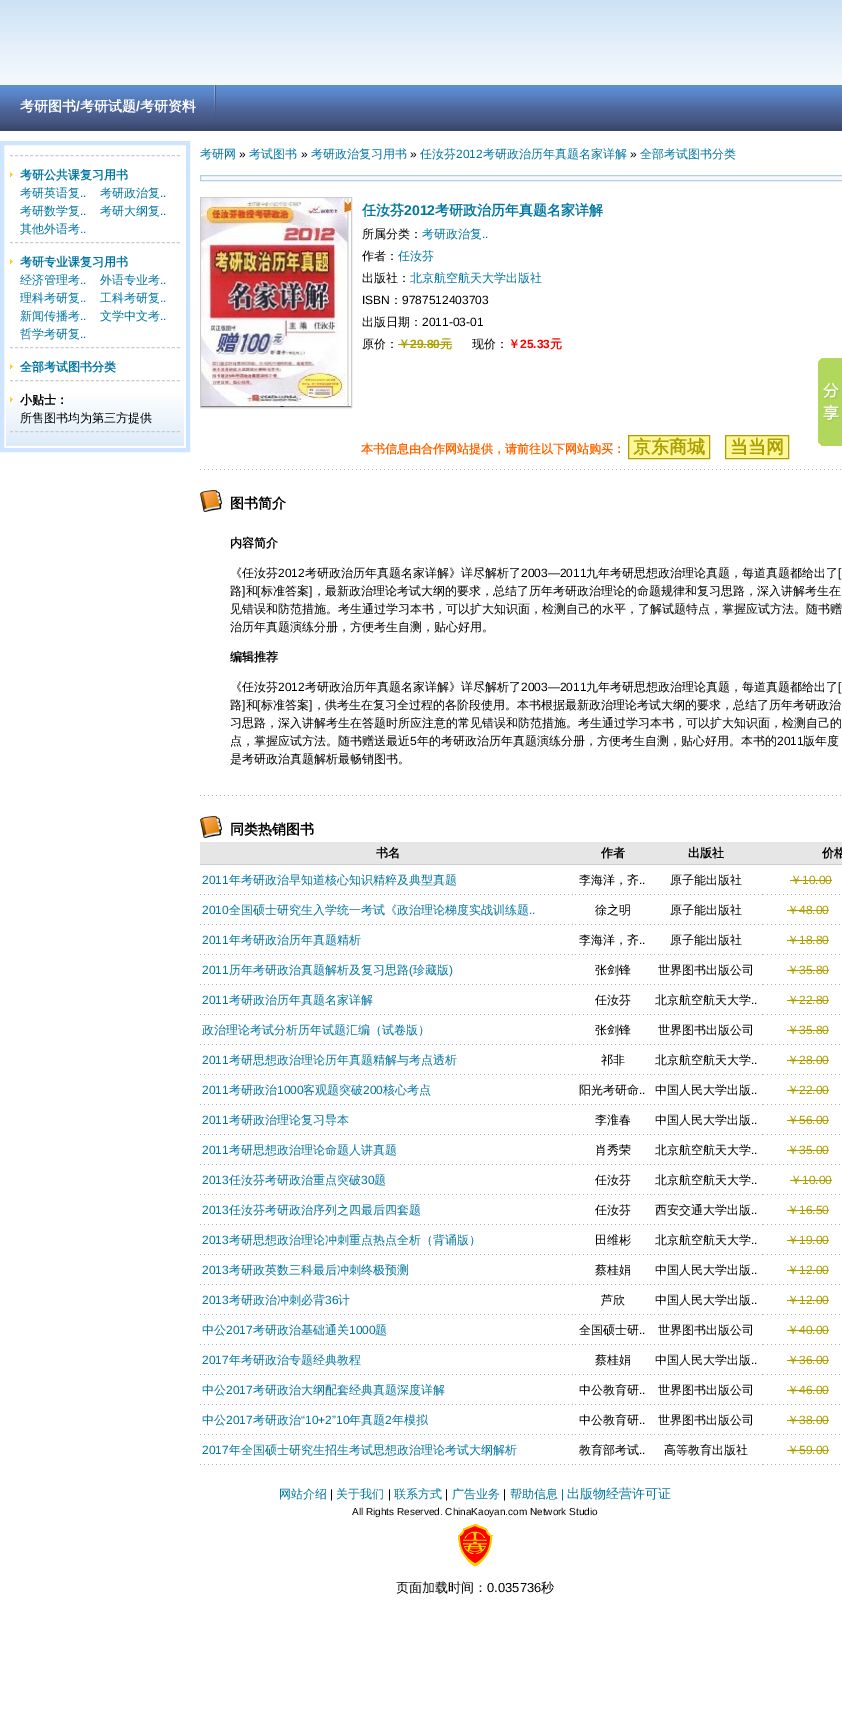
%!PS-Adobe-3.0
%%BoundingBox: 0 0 842 1719
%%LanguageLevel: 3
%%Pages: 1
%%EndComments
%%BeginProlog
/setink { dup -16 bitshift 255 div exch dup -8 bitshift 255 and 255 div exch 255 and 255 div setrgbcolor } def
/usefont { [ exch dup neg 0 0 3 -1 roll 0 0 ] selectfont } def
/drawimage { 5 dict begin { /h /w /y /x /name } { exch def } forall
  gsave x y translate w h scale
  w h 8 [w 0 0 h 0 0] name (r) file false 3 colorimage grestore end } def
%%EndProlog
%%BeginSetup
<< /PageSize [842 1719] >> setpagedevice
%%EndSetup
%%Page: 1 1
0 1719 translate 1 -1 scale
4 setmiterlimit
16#FFFFFF setink
0 0 842 1719 rectfill
(img1.raw) 0 0 842 85 drawimage
(img2.raw) 0 85 842 46 drawimage
(img3.raw) 214 85 2 31 drawimage
/WenQuanYiZenHei-Bold 14 usefont
20 111 moveto (考研图书) show
/LiberationSans-Bold 14 usefont
76 111 moveto (/) show
/WenQuanYiZenHei-Bold 14 usefont
80 111 moveto (考研试题) show
/LiberationSans-Bold 14 usefont
136 111 moveto (/) show
/WenQuanYiZenHei-Bold 14 usefont
140 111 moveto (考研资料) show
16#CFE5FF setink
4 setlinewidth
2 143 186 307 rectstroke
(img4.raw) 6 396 178 50 drawimage
16#CCCCCC setink
1 setlinewidth
[3 2.06] 0 setdash
10 155.5 moveto 180 155.5 lineto stroke
(img5.raw) 10 172 3 5 drawimage
10 242.5 moveto 180 242.5 lineto stroke
/WenQuanYiZenHei-Bold 12 usefont
16#0076A3 setink
20 179 moveto (考研公共课复习用书) show
/WenQuanYiZenHei-Medium 12 usefont
20 197 moveto (考研英语复) show
/LiberationSans-Regular 12 usefont
80 197 moveto (..) show
/WenQuanYiZenHei-Medium 12 usefont
100 197 moveto (考研政治复) show
/LiberationSans-Regular 12 usefont
160 197 moveto (..) show
/WenQuanYiZenHei-Medium 12 usefont
20 215 moveto (考研数学复) show
/LiberationSans-Regular 12 usefont
80 215 moveto (..) show
/WenQuanYiZenHei-Medium 12 usefont
100 215 moveto (考研大纲复) show
/LiberationSans-Regular 12 usefont
160 215 moveto (..) show
/WenQuanYiZenHei-Medium 12 usefont
20 233 moveto (其他外语考) show
/LiberationSans-Regular 12 usefont
80 233 moveto (..) show
(img5.raw) 10 259 3 5 drawimage
16#CCCCCC setink
10 347.5 moveto 180 347.5 lineto stroke
/WenQuanYiZenHei-Bold 12 usefont
16#0076A3 setink
20 266 moveto (考研专业课复习用书) show
/WenQuanYiZenHei-Medium 12 usefont
20 284 moveto (经济管理考) show
/LiberationSans-Regular 12 usefont
80 284 moveto (..) show
/WenQuanYiZenHei-Medium 12 usefont
100 284 moveto (外语专业考) show
/LiberationSans-Regular 12 usefont
160 284 moveto (..) show
/WenQuanYiZenHei-Medium 12 usefont
20 302 moveto (理科考研复) show
/LiberationSans-Regular 12 usefont
80 302 moveto (..) show
/WenQuanYiZenHei-Medium 12 usefont
100 302 moveto (工科考研复) show
/LiberationSans-Regular 12 usefont
160 302 moveto (..) show
/WenQuanYiZenHei-Medium 12 usefont
20 320 moveto (新闻传播考) show
/LiberationSans-Regular 12 usefont
80 320 moveto (..) show
/WenQuanYiZenHei-Medium 12 usefont
100 320 moveto (文学中文考) show
/LiberationSans-Regular 12 usefont
160 320 moveto (..) show
/WenQuanYiZenHei-Medium 12 usefont
20 338 moveto (哲学考研复) show
/LiberationSans-Regular 12 usefont
80 338 moveto (..) show
(img5.raw) 10 364 3 5 drawimage
16#CCCCCC setink
10 380.5 moveto 180 380.5 lineto stroke
/WenQuanYiZenHei-Bold 12 usefont
16#0076A3 setink
20 371 moveto (全部考试图书分类) show
(img6.raw) 10 397 3 5 drawimage
16#CCCCCC setink
10 431.5 moveto 180 431.5 lineto stroke
16#000000 setink
20 404 moveto (小贴士：) show
/WenQuanYiZenHei-Medium 12 usefont
20 422 moveto (所售图书均为第三方提供) show
16#0076A3 setink
200 158 moveto (考研网) show
/LiberationSans-Regular 12 usefont
16#000000 setink
239 158 moveto (») show
/WenQuanYiZenHei-Medium 12 usefont
16#0076A3 setink
249 158 moveto (考试图书) show
/LiberationSans-Regular 12 usefont
16#000000 setink
301 158 moveto (») show
/WenQuanYiZenHei-Medium 12 usefont
16#0076A3 setink
311 158 moveto (考研政治复习用书) show
/LiberationSans-Regular 12 usefont
16#000000 setink
410 158 moveto (») show
/WenQuanYiZenHei-Medium 12 usefont
16#0076A3 setink
420 158 moveto (任汝芬) show
/LiberationSans-Regular 12 usefont
456 158 moveto (2012) show
/WenQuanYiZenHei-Medium 12 usefont
483 158 moveto (考研政治历年真题名家详解) show
/LiberationSans-Regular 12 usefont
16#000000 setink
630 158 moveto (») show
/WenQuanYiZenHei-Medium 12 usefont
16#0076A3 setink
640 158 moveto (全部考试图书分类) show
16#F7FBFE setink
200.5 175.5 moveto 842.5 175.5 lineto 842.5 180.5 lineto 200.5 180.5 lineto closepath gsave fill grestore
16#B0D0E7 setink
[] 0 setdash
stroke
(img7.raw) 200 469 641 1 drawimage
16#CCCCCC setink
200.5 197.5 151 210 rectstroke
(img8.raw) 201 198 150 209 drawimage
/WenQuanYiZenHei-Bold 14 usefont
16#0076A3 setink
362 215 moveto (任汝芬) show
/LiberationSans-Bold 14 usefont
404 215 moveto (2012) show
/WenQuanYiZenHei-Bold 14 usefont
435 215 moveto (考研政治历年真题名家详解) show
/WenQuanYiZenHei-Medium 12 usefont
16#000000 setink
362 238 moveto (所属分类：) show
16#0076A3 setink
422 238 moveto (考研政治复) show
/LiberationSans-Regular 12 usefont
482 238 moveto (..) show
/WenQuanYiZenHei-Medium 12 usefont
16#000000 setink
362 260 moveto (作者：) show
16#0076A3 setink
398 260 moveto (任汝芬) show
16#000000 setink
362 282 moveto (出版社：) show
16#0076A3 setink
410 282 moveto (北京航空航天大学出版社) show
/LiberationSans-Regular 12 usefont
16#000000 setink
362 304 moveto (ISBN) show
/WenQuanYiZenHei-Medium 12 usefont
390 304 moveto (：) show
/LiberationSans-Regular 12 usefont
402 304 moveto (9787512403703) show
/WenQuanYiZenHei-Medium 12 usefont
362 326 moveto (出版日期：) show
/LiberationSans-Regular 12 usefont
422 326 moveto (2011-03-01) show
/WenQuanYiZenHei-Medium 12 usefont
362 348 moveto (原价：) show
/WenQuanYiZenHei-Bold 12 usefont
16#ABA000 setink
398 348 moveto (￥) show
/LiberationSans-Bold 12 usefont
410 348 moveto (29.80) show
398 344 54 1 rectfill
/WenQuanYiZenHei-Bold 12 usefont
440 348 moveto (元) show
/WenQuanYiZenHei-Medium 12 usefont
16#000000 setink
472 348 moveto (现价：) show
/WenQuanYiZenHei-Bold 12 usefont
16#FF0000 setink
508 348 moveto (￥) show
/LiberationSans-Bold 12 usefont
520 348 moveto (25.33) show
/WenQuanYiZenHei-Bold 12 usefont
550 348 moveto (元) show
16#FF6600 setink
361 453 moveto (本书信息由合作网站提供，请前往以下网站购买：) show
16#FDF799 setink
628.5 435.5 moveto 709.5 435.5 lineto 709.5 458.5 lineto 628.5 458.5 lineto closepath gsave fill grestore
16#ABA000 setink
stroke
/WenQuanYiZenHei-Bold 18 usefont
633 453 moveto (京东商城) show
16#FDF799 setink
725.5 435.5 moveto 788.5 435.5 lineto 788.5 458.5 lineto 725.5 458.5 lineto closepath gsave fill grestore
16#ABA000 setink
stroke
730 453 moveto (当当网) show
(img7.raw) 200 795 641 1 drawimage
(img9.raw) 200 490 22 22 drawimage
/WenQuanYiZenHei-Bold 14 usefont
16#000000 setink
230 508 moveto (图书简介) show
/WenQuanYiZenHei-Bold 12 usefont
230 547 moveto (内容简介) show
/WenQuanYiZenHei-Medium 12 usefont
230 577 moveto (《任汝芬) show
/LiberationSans-Regular 12 usefont
278 577 moveto (2012) show
/WenQuanYiZenHei-Medium 12 usefont
305 577 moveto (考研政治历年真题名家详解》详尽解析了) show
/LiberationSans-Regular 12 usefont
521 577 moveto (2003—2011) show
/WenQuanYiZenHei-Medium 12 usefont
586 577 moveto (九年考研思想政治理论真题，每道真题都给出了) show
/LiberationSans-Regular 12 usefont
838 577 moveto ([) show
/WenQuanYiZenHei-Medium 12 usefont
230 595 moveto (路 和) show
/LiberationSans-Regular 12 usefont
257 595 moveto ([) show
/WenQuanYiZenHei-Medium 12 usefont
261 595 moveto (标准答案 ，最新政治理论考试大纲的要求，总结了历年考研政治理论的命题规律和复习思路，深入讲解考生在) show
/LiberationSans-Regular 12 usefont
242 595 moveto (]) show
309 595 moveto (]) show
/WenQuanYiZenHei-Medium 12 usefont
230 613 moveto (见错误和防范措施。考生通过学习本书，可以扩大知识面，检测自己的水平，了解试题特点，掌握应试方法。随书赠) show
230 631 moveto (治历年真题演练分册，方便考生自测，贴心好用。) show
/WenQuanYiZenHei-Bold 12 usefont
230 661 moveto (编辑推荐) show
/WenQuanYiZenHei-Medium 12 usefont
230 691 moveto (《任汝芬) show
/LiberationSans-Regular 12 usefont
278 691 moveto (2012) show
/WenQuanYiZenHei-Medium 12 usefont
305 691 moveto (考研政治历年真题名家详解》详尽解析了) show
/LiberationSans-Regular 12 usefont
521 691 moveto (2003—2011) show
/WenQuanYiZenHei-Medium 12 usefont
586 691 moveto (九年考研思想政治理论真题，每道真题都给出了) show
/LiberationSans-Regular 12 usefont
838 691 moveto ([) show
/WenQuanYiZenHei-Medium 12 usefont
230 709 moveto (路 和) show
/LiberationSans-Regular 12 usefont
257 709 moveto ([) show
/WenQuanYiZenHei-Medium 12 usefont
261 709 moveto (标准答案 ，供考生在复习全过程的各阶段使用。本书根据最新政治理论考试大纲的要求，总结了历年考研政治) show
/LiberationSans-Regular 12 usefont
242 709 moveto (]) show
309 709 moveto (]) show
/WenQuanYiZenHei-Medium 12 usefont
230 727 moveto (习思路，深入讲解考生在答题时所应注意的常见错误和防范措施。考生通过学习本书，可以扩大知识面，检测自己的) show
230 745 moveto (点，掌握应试方法。随书赠送最近) show
/LiberationSans-Regular 12 usefont
410 745 moveto (5) show
/WenQuanYiZenHei-Medium 12 usefont
417 745 moveto (年的考研政治历年真题演练分册，方便考生自测，贴心好用。本书的) show
/LiberationSans-Regular 12 usefont
777 745 moveto (2011) show
/WenQuanYiZenHei-Medium 12 usefont
803 745 moveto (版年度) show
230 763 moveto (是考研政治真题解析最畅销图书。) show
(img9.raw) 200 816 22 22 drawimage
/WenQuanYiZenHei-Bold 14 usefont
230 834 moveto (同类热销图书) show
16#E6E6E6 setink
200 842 642 22 rectfill
16#CCCCCC setink
200 864 642 1 rectfill
/WenQuanYiZenHei-Bold 12 usefont
16#000000 setink
[
    [(书名) 376 857]
    [(作者) 601 857]
    [(出版社) 688 857]
    [(价格) 822 857]
] { aload pop moveto show } forall
(img10.raw) 200 894 373 1 drawimage
/LiberationSans-Regular 12 usefont
16#0076A3 setink
202 884 moveto (2011) show
/WenQuanYiZenHei-Medium 12 usefont
229 884 moveto (年考研政治早知道核心知识精粹及典型真题) show
(img11.raw) 575 894 73 1 drawimage
16#000000 setink
579 884 moveto (李海洋，齐) show
/LiberationSans-Regular 12 usefont
639 884 moveto (..) show
(img12.raw) 650 894 113 1 drawimage
/WenQuanYiZenHei-Medium 12 usefont
670 884 moveto (原子能出版社) show
(img13.raw) 763 894 77 1 drawimage
16#ABA000 setink
790 884 moveto (￥) show
/LiberationSans-Regular 12 usefont
802 884 moveto (10.00) show
790 880 42 1 rectfill
(img10.raw) 200 924 373 1 drawimage
16#0076A3 setink
202 914 moveto (2010) show
/WenQuanYiZenHei-Medium 12 usefont
229 914 moveto (全国硕士研究生入学统一考试《政治理论梯度实战训练题) show
/LiberationSans-Regular 12 usefont
529 914 moveto (..) show
(img11.raw) 575 924 73 1 drawimage
/WenQuanYiZenHei-Medium 12 usefont
16#000000 setink
595 914 moveto (徐之明) show
(img12.raw) 650 924 113 1 drawimage
670 914 moveto (原子能出版社) show
(img13.raw) 763 924 77 1 drawimage
16#ABA000 setink
787 914 moveto (￥) show
/LiberationSans-Regular 12 usefont
799 914 moveto (48.00) show
787 910 42 1 rectfill
(img10.raw) 200 954 373 1 drawimage
16#0076A3 setink
202 944 moveto (2011) show
/WenQuanYiZenHei-Medium 12 usefont
229 944 moveto (年考研政治历年真题精析) show
(img11.raw) 575 954 73 1 drawimage
16#000000 setink
579 944 moveto (李海洋，齐) show
/LiberationSans-Regular 12 usefont
639 944 moveto (..) show
(img12.raw) 650 954 113 1 drawimage
/WenQuanYiZenHei-Medium 12 usefont
670 944 moveto (原子能出版社) show
(img13.raw) 763 954 77 1 drawimage
16#ABA000 setink
787 944 moveto (￥) show
/LiberationSans-Regular 12 usefont
799 944 moveto (18.80) show
787 940 42 1 rectfill
(img10.raw) 200 984 373 1 drawimage
16#0076A3 setink
202 974 moveto (2011) show
/WenQuanYiZenHei-Medium 12 usefont
229 974 moveto (历年考研政治真题解析及复习思路) show
/LiberationSans-Regular 12 usefont
409 974 moveto (\() show
/WenQuanYiZenHei-Medium 12 usefont
413 974 moveto (珍藏版) show
/LiberationSans-Regular 12 usefont
449 974 moveto (\)) show
(img11.raw) 575 984 73 1 drawimage
/WenQuanYiZenHei-Medium 12 usefont
16#000000 setink
595 974 moveto (张剑锋) show
(img12.raw) 650 984 113 1 drawimage
658 974 moveto (世界图书出版公司) show
(img13.raw) 763 984 77 1 drawimage
16#ABA000 setink
787 974 moveto (￥) show
/LiberationSans-Regular 12 usefont
799 974 moveto (35.80) show
787 970 42 1 rectfill
(img10.raw) 200 1014 373 1 drawimage
16#0076A3 setink
202 1004 moveto (2011) show
/WenQuanYiZenHei-Medium 12 usefont
229 1004 moveto (考研政治历年真题名家详解) show
(img11.raw) 575 1014 73 1 drawimage
16#000000 setink
595 1004 moveto (任汝芬) show
(img12.raw) 650 1014 113 1 drawimage
655 1004 moveto (北京航空航天大学) show
/LiberationSans-Regular 12 usefont
751 1004 moveto (..) show
(img13.raw) 763 1014 77 1 drawimage
/WenQuanYiZenHei-Medium 12 usefont
16#ABA000 setink
787 1004 moveto (￥) show
/LiberationSans-Regular 12 usefont
799 1004 moveto (22.80) show
787 1000 42 1 rectfill
(img10.raw) 200 1044 373 1 drawimage
/WenQuanYiZenHei-Medium 12 usefont
16#0076A3 setink
202 1034 moveto (政治理论考试分析历年试题汇编（试卷版）) show
(img11.raw) 575 1044 73 1 drawimage
16#000000 setink
595 1034 moveto (张剑锋) show
(img12.raw) 650 1044 113 1 drawimage
658 1034 moveto (世界图书出版公司) show
(img13.raw) 763 1044 77 1 drawimage
16#ABA000 setink
787 1034 moveto (￥) show
/LiberationSans-Regular 12 usefont
799 1034 moveto (35.80) show
787 1030 42 1 rectfill
(img10.raw) 200 1074 373 1 drawimage
16#0076A3 setink
202 1064 moveto (2011) show
/WenQuanYiZenHei-Medium 12 usefont
229 1064 moveto (考研思想政治理论历年真题精解与考点透析) show
(img11.raw) 575 1074 73 1 drawimage
16#000000 setink
601 1064 moveto (祁非) show
(img12.raw) 650 1074 113 1 drawimage
655 1064 moveto (北京航空航天大学) show
/LiberationSans-Regular 12 usefont
751 1064 moveto (..) show
(img13.raw) 763 1074 77 1 drawimage
/WenQuanYiZenHei-Medium 12 usefont
16#ABA000 setink
787 1064 moveto (￥) show
/LiberationSans-Regular 12 usefont
799 1064 moveto (28.00) show
787 1060 42 1 rectfill
(img10.raw) 200 1104 373 1 drawimage
16#0076A3 setink
202 1094 moveto (2011) show
/WenQuanYiZenHei-Medium 12 usefont
229 1094 moveto (考研政治) show
/LiberationSans-Regular 12 usefont
277 1094 moveto (1000) show
/WenQuanYiZenHei-Medium 12 usefont
303 1094 moveto (客观题突破) show
/LiberationSans-Regular 12 usefont
363 1094 moveto (200) show
/WenQuanYiZenHei-Medium 12 usefont
383 1094 moveto (核心考点) show
(img11.raw) 575 1104 73 1 drawimage
16#000000 setink
579 1094 moveto (阳光考研命) show
/LiberationSans-Regular 12 usefont
639 1094 moveto (..) show
(img12.raw) 650 1104 113 1 drawimage
/WenQuanYiZenHei-Medium 12 usefont
655 1094 moveto (中国人民大学出版) show
/LiberationSans-Regular 12 usefont
751 1094 moveto (..) show
(img13.raw) 763 1104 77 1 drawimage
/WenQuanYiZenHei-Medium 12 usefont
16#ABA000 setink
787 1094 moveto (￥) show
/LiberationSans-Regular 12 usefont
799 1094 moveto (22.00) show
787 1090 42 1 rectfill
(img10.raw) 200 1134 373 1 drawimage
16#0076A3 setink
202 1124 moveto (2011) show
/WenQuanYiZenHei-Medium 12 usefont
229 1124 moveto (考研政治理论复习导本) show
(img11.raw) 575 1134 73 1 drawimage
16#000000 setink
595 1124 moveto (李淮春) show
(img12.raw) 650 1134 113 1 drawimage
655 1124 moveto (中国人民大学出版) show
/LiberationSans-Regular 12 usefont
751 1124 moveto (..) show
(img13.raw) 763 1134 77 1 drawimage
/WenQuanYiZenHei-Medium 12 usefont
16#ABA000 setink
787 1124 moveto (￥) show
/LiberationSans-Regular 12 usefont
799 1124 moveto (56.00) show
787 1120 42 1 rectfill
(img10.raw) 200 1164 373 1 drawimage
16#0076A3 setink
202 1154 moveto (2011) show
/WenQuanYiZenHei-Medium 12 usefont
229 1154 moveto (考研思想政治理论命题人讲真题) show
(img11.raw) 575 1164 73 1 drawimage
16#000000 setink
595 1154 moveto (肖秀荣) show
(img12.raw) 650 1164 113 1 drawimage
655 1154 moveto (北京航空航天大学) show
/LiberationSans-Regular 12 usefont
751 1154 moveto (..) show
(img13.raw) 763 1164 77 1 drawimage
/WenQuanYiZenHei-Medium 12 usefont
16#ABA000 setink
787 1154 moveto (￥) show
/LiberationSans-Regular 12 usefont
799 1154 moveto (35.00) show
787 1150 42 1 rectfill
(img10.raw) 200 1194 373 1 drawimage
16#0076A3 setink
202 1184 moveto (2013) show
/WenQuanYiZenHei-Medium 12 usefont
229 1184 moveto (任汝芬考研政治重点突破) show
/LiberationSans-Regular 12 usefont
361 1184 moveto (30) show
/WenQuanYiZenHei-Medium 12 usefont
374 1184 moveto (题) show
(img11.raw) 575 1194 73 1 drawimage
16#000000 setink
595 1184 moveto (任汝芬) show
(img12.raw) 650 1194 113 1 drawimage
655 1184 moveto (北京航空航天大学) show
/LiberationSans-Regular 12 usefont
751 1184 moveto (..) show
(img13.raw) 763 1194 77 1 drawimage
/WenQuanYiZenHei-Medium 12 usefont
16#ABA000 setink
790 1184 moveto (￥) show
/LiberationSans-Regular 12 usefont
802 1184 moveto (10.00) show
790 1180 42 1 rectfill
(img10.raw) 200 1224 373 1 drawimage
16#0076A3 setink
202 1214 moveto (2013) show
/WenQuanYiZenHei-Medium 12 usefont
229 1214 moveto (任汝芬考研政治序列之四最后四套题) show
(img11.raw) 575 1224 73 1 drawimage
16#000000 setink
595 1214 moveto (任汝芬) show
(img12.raw) 650 1224 113 1 drawimage
655 1214 moveto (西安交通大学出版) show
/LiberationSans-Regular 12 usefont
751 1214 moveto (..) show
(img13.raw) 763 1224 77 1 drawimage
/WenQuanYiZenHei-Medium 12 usefont
16#ABA000 setink
787 1214 moveto (￥) show
/LiberationSans-Regular 12 usefont
799 1214 moveto (16.50) show
787 1210 42 1 rectfill
(img10.raw) 200 1254 373 1 drawimage
16#0076A3 setink
202 1244 moveto (2013) show
/WenQuanYiZenHei-Medium 12 usefont
229 1244 moveto (考研思想政治理论冲刺重点热点全析（背诵版）) show
(img11.raw) 575 1254 73 1 drawimage
16#000000 setink
595 1244 moveto (田维彬) show
(img12.raw) 650 1254 113 1 drawimage
655 1244 moveto (北京航空航天大学) show
/LiberationSans-Regular 12 usefont
751 1244 moveto (..) show
(img13.raw) 763 1254 77 1 drawimage
/WenQuanYiZenHei-Medium 12 usefont
16#ABA000 setink
787 1244 moveto (￥) show
/LiberationSans-Regular 12 usefont
799 1244 moveto (19.00) show
787 1240 42 1 rectfill
(img10.raw) 200 1284 373 1 drawimage
16#0076A3 setink
202 1274 moveto (2013) show
/WenQuanYiZenHei-Medium 12 usefont
229 1274 moveto (考研政英数三科最后冲刺终极预测) show
(img11.raw) 575 1284 73 1 drawimage
16#000000 setink
595 1274 moveto (蔡桂娟) show
(img12.raw) 650 1284 113 1 drawimage
655 1274 moveto (中国人民大学出版) show
/LiberationSans-Regular 12 usefont
751 1274 moveto (..) show
(img13.raw) 763 1284 77 1 drawimage
/WenQuanYiZenHei-Medium 12 usefont
16#ABA000 setink
787 1274 moveto (￥) show
/LiberationSans-Regular 12 usefont
799 1274 moveto (12.00) show
787 1270 42 1 rectfill
(img10.raw) 200 1314 373 1 drawimage
16#0076A3 setink
202 1304 moveto (2013) show
/WenQuanYiZenHei-Medium 12 usefont
229 1304 moveto (考研政治冲刺必背) show
/LiberationSans-Regular 12 usefont
325 1304 moveto (36) show
/WenQuanYiZenHei-Medium 12 usefont
338 1304 moveto (计) show
(img11.raw) 575 1314 73 1 drawimage
16#000000 setink
601 1304 moveto (芦欣) show
(img12.raw) 650 1314 113 1 drawimage
655 1304 moveto (中国人民大学出版) show
/LiberationSans-Regular 12 usefont
751 1304 moveto (..) show
(img13.raw) 763 1314 77 1 drawimage
/WenQuanYiZenHei-Medium 12 usefont
16#ABA000 setink
787 1304 moveto (￥) show
/LiberationSans-Regular 12 usefont
799 1304 moveto (12.00) show
787 1300 42 1 rectfill
(img10.raw) 200 1344 373 1 drawimage
/WenQuanYiZenHei-Medium 12 usefont
16#0076A3 setink
202 1334 moveto (中公) show
/LiberationSans-Regular 12 usefont
226 1334 moveto (2017) show
/WenQuanYiZenHei-Medium 12 usefont
253 1334 moveto (考研政治基础通关) show
/LiberationSans-Regular 12 usefont
349 1334 moveto (1000) show
/WenQuanYiZenHei-Medium 12 usefont
375 1334 moveto (题) show
(img11.raw) 575 1344 73 1 drawimage
16#000000 setink
579 1334 moveto (全国硕士研) show
/LiberationSans-Regular 12 usefont
639 1334 moveto (..) show
(img12.raw) 650 1344 113 1 drawimage
/WenQuanYiZenHei-Medium 12 usefont
658 1334 moveto (世界图书出版公司) show
(img13.raw) 763 1344 77 1 drawimage
16#ABA000 setink
787 1334 moveto (￥) show
/LiberationSans-Regular 12 usefont
799 1334 moveto (40.00) show
787 1330 42 1 rectfill
(img10.raw) 200 1374 373 1 drawimage
16#0076A3 setink
202 1364 moveto (2017) show
/WenQuanYiZenHei-Medium 12 usefont
229 1364 moveto (年考研政治专题经典教程) show
(img11.raw) 575 1374 73 1 drawimage
16#000000 setink
595 1364 moveto (蔡桂娟) show
(img12.raw) 650 1374 113 1 drawimage
655 1364 moveto (中国人民大学出版) show
/LiberationSans-Regular 12 usefont
751 1364 moveto (..) show
(img13.raw) 763 1374 77 1 drawimage
/WenQuanYiZenHei-Medium 12 usefont
16#ABA000 setink
787 1364 moveto (￥) show
/LiberationSans-Regular 12 usefont
799 1364 moveto (36.00) show
787 1360 42 1 rectfill
(img10.raw) 200 1404 373 1 drawimage
/WenQuanYiZenHei-Medium 12 usefont
16#0076A3 setink
202 1394 moveto (中公) show
/LiberationSans-Regular 12 usefont
226 1394 moveto (2017) show
/WenQuanYiZenHei-Medium 12 usefont
253 1394 moveto (考研政治大纲配套经典真题深度详解) show
(img11.raw) 575 1404 73 1 drawimage
16#000000 setink
579 1394 moveto (中公教育研) show
/LiberationSans-Regular 12 usefont
639 1394 moveto (..) show
(img12.raw) 650 1404 113 1 drawimage
/WenQuanYiZenHei-Medium 12 usefont
658 1394 moveto (世界图书出版公司) show
(img13.raw) 763 1404 77 1 drawimage
16#ABA000 setink
787 1394 moveto (￥) show
/LiberationSans-Regular 12 usefont
799 1394 moveto (46.00) show
787 1390 42 1 rectfill
(img10.raw) 200 1434 373 1 drawimage
/WenQuanYiZenHei-Medium 12 usefont
16#0076A3 setink
202 1424 moveto (中公) show
/LiberationSans-Regular 12 usefont
226 1424 moveto (2017) show
/WenQuanYiZenHei-Medium 12 usefont
253 1424 moveto (考研政治) show
/LiberationSans-Regular 12 usefont
301 1424 moveto (“10+2”10) show
/WenQuanYiZenHei-Medium 12 usefont
349 1424 moveto (年真题) show
/LiberationSans-Regular 12 usefont
385 1424 moveto (2) show
/WenQuanYiZenHei-Medium 12 usefont
392 1424 moveto (年模拟) show
(img11.raw) 575 1434 73 1 drawimage
16#000000 setink
579 1424 moveto (中公教育研) show
/LiberationSans-Regular 12 usefont
639 1424 moveto (..) show
(img12.raw) 650 1434 113 1 drawimage
/WenQuanYiZenHei-Medium 12 usefont
658 1424 moveto (世界图书出版公司) show
(img13.raw) 763 1434 77 1 drawimage
16#ABA000 setink
787 1424 moveto (￥) show
/LiberationSans-Regular 12 usefont
799 1424 moveto (38.00) show
787 1420 42 1 rectfill
(img10.raw) 200 1464 373 1 drawimage
16#0076A3 setink
202 1454 moveto (2017) show
/WenQuanYiZenHei-Medium 12 usefont
229 1454 moveto (年全国硕士研究生招生考试思想政治理论考试大纲解析) show
(img11.raw) 575 1464 73 1 drawimage
16#000000 setink
579 1454 moveto (教育部考试) show
/LiberationSans-Regular 12 usefont
639 1454 moveto (..) show
(img12.raw) 650 1464 113 1 drawimage
/WenQuanYiZenHei-Medium 12 usefont
664 1454 moveto (高等教育出版社) show
(img13.raw) 763 1464 77 1 drawimage
16#ABA000 setink
787 1454 moveto (￥) show
/LiberationSans-Regular 12 usefont
799 1454 moveto (59.00) show
787 1450 42 1 rectfill
(img14.raw) 818 358 24 88 drawimage
/WenQuanYiZenHei-Medium 12 usefont
16#0076A3 setink
279 1498 moveto (网站介绍) show
/LiberationSans-Regular 12 usefont
16#000000 setink
330 1498 moveto (|) show
/WenQuanYiZenHei-Medium 12 usefont
16#0076A3 setink
336 1498 moveto (关于我们) show
/LiberationSans-Regular 12 usefont
16#000000 setink
388 1498 moveto (|) show
/WenQuanYiZenHei-Medium 12 usefont
16#0076A3 setink
394 1498 moveto (联系方式) show
/LiberationSans-Regular 12 usefont
16#000000 setink
445 1498 moveto (|) show
/WenQuanYiZenHei-Medium 12 usefont
16#0076A3 setink
452 1498 moveto (广告业务) show
/LiberationSans-Regular 12 usefont
16#000000 setink
503 1498 moveto (|) show
/WenQuanYiZenHei-Medium 12 usefont
16#0076A3 setink
510 1498 moveto (帮助信息) show
/LiberationSans-Regular 12 usefont
561 1498 moveto (|) show
/WenQuanYiZenHei-Medium 13 usefont
567 1498 moveto (出版物经营许可证) show
/LiberationSans-Regular 10 usefont
16#000000 setink
352 1515 moveto (All Rights Reserved. ChinaKaoyan.com Network Studio) show
(img15.raw) 458 1524 35 43 drawimage
/WenQuanYiZenHei-Medium 13 usefont
396 1592 moveto (页面加载时间：) show
/LiberationSans-Regular 13 usefont
487 1592 moveto (0.035736) show
/WenQuanYiZenHei-Medium 13 usefont
541 1592 moveto (秒) show
showpage
%%EOF
